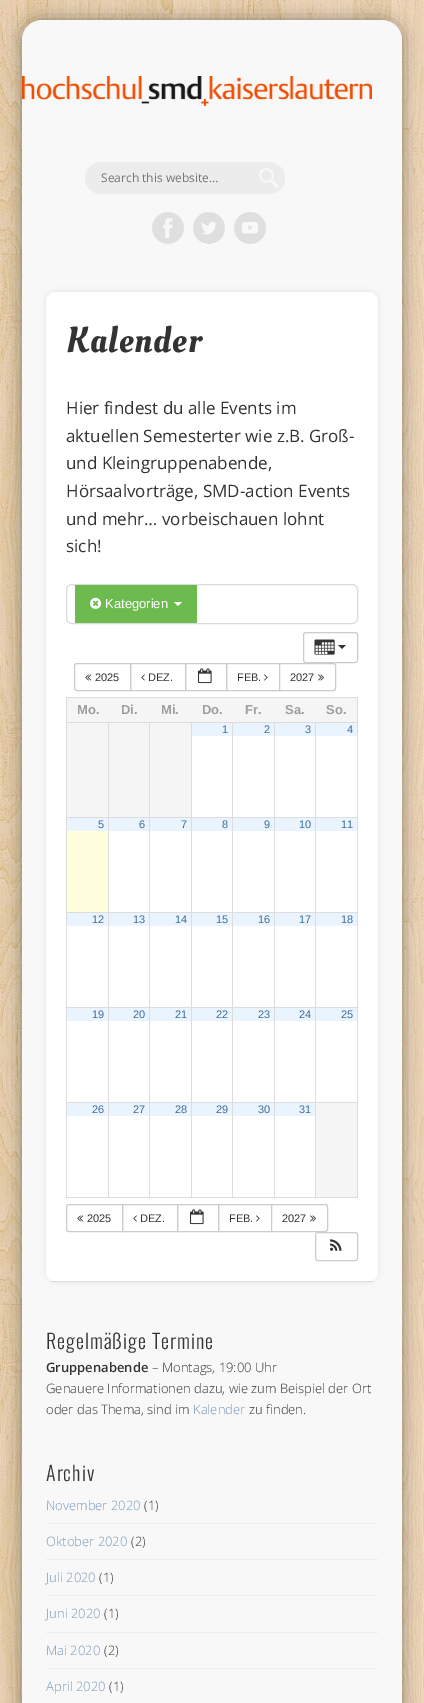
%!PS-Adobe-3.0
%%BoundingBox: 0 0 424 1703
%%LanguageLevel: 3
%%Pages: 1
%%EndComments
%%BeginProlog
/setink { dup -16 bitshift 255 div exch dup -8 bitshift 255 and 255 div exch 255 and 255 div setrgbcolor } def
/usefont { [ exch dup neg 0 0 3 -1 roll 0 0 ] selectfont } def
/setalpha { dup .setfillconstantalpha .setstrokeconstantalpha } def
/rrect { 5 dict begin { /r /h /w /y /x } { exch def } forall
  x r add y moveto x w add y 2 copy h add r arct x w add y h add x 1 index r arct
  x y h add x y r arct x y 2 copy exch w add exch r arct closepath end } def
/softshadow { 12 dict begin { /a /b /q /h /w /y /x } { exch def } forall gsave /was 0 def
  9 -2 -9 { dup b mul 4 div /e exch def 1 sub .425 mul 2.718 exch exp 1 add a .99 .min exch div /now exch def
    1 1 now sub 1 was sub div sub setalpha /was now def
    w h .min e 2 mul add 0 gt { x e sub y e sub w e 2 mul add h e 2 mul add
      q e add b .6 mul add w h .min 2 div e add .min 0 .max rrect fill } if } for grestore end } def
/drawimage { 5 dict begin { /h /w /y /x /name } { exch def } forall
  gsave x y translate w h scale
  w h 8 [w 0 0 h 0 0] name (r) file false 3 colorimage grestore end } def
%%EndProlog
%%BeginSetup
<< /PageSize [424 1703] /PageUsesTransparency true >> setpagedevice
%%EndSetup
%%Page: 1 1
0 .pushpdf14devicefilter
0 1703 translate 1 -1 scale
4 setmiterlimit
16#FFFFFF setink
0 0 424 1703 rectfill
(img1.raw) 0 0 424 1703 drawimage
16#000000 setink
22 20 380 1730 20 9 0.4 softshadow
16#F8F8F8 setink
22 20 380 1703 20 rrect fill
(img2.raw) 22 76 350 30 drawimage
16#ECECEC setink
85 162 200 32 16 rrect fill
(img3.raw) 259 168 20 20 drawimage
/OpenSans-Regular 12 usefont
16#757575 setink
101 182 moveto (Search this website…) show
(img4.raw) 152 212 32 32 drawimage
(img5.raw) 193 212 32 32 drawimage
(img6.raw) 234 212 32 32 drawimage
16#000000 setink
46 292 332 990 10 2.5 0.1 softshadow
16#FFFFFF setink
46 292 332 990 10 rrect fill
0.13 setalpha
16#000000 setink
51 1281 322 1 rectfill
/OleoScript-Regular 36 usefont
1 setalpha
16#333333 setink
66 352 moveto 1 0 (Kalender) ashow
/OpenSans-Regular 17 usefont
[
    [(Hier findest du alle Events im) 66 414]
    [(aktuellen Semesterter wie z.B. Groß-) 66 442]
    [(und Kleingruppenabende,) 66 469]
    [(Hörsaalvorträge, SMD-action Events) 66 497]
    [(und mehr… vorbeischauen lohnt) 66 525]
    [(sich!) 66 552]
] { aload pop moveto show } forall
16#DBDBDB setink
66.5 584.5 291 39 5.5 rrect stroke
16#6DBB4F setink
75 585 122 38 rectfill
(img7.raw) 90 597 12 12 drawimage
/LiberationSans-Regular 13 usefont
16#FFFFFF setink
105 608 moveto (Kategorien) show
174 602 moveto 182 602 lineto 178 606 lineto closepath fill
16#CCCCCC setink
303.5 632.5 54 30 2.5 rrect stroke
(img8.raw) 314 639 21 16 drawimage
16#333333 setink
338 645 moveto 346 645 lineto 342 649 lineto closepath fill
16#CCCCCC setink
77 663.5 moveto 130.5 663.5 lineto 130.5 690.5 lineto 77 690.5 lineto 75.5 690.5 74.5 689.5 74.5 688 curveto 74.5 666 lineto 74.5 664.5 75.5 663.5 77 663.5 curveto closepath stroke
(img9.raw) 85 674 7 7 drawimage
/LiberationSans-Regular 11 usefont
16#333333 setink
95 681 moveto (2025) show
16#CCCCCC setink
130.5 663.5 55 27 rectstroke
(img10.raw) 141 674 4 7 drawimage
16#333333 setink
148 681 moveto (DEZ.) show
16#CCCCCC setink
185.5 663.5 41 27 rectstroke
(img11.raw) 198 668 14 16 drawimage
226.5 663.5 53 27 rectstroke
16#333333 setink
237 681 moveto (FEB.) show
(img12.raw) 264 674 4 7 drawimage
16#FFFFFF setink
279.5 663.5 moveto 333 663.5 lineto 334.5 663.5 335.5 664.5 335.5 666 curveto 335.5 688 lineto 335.5 689.5 334.5 690.5 333 690.5 curveto 279.5 690.5 lineto closepath gsave fill grestore
16#CCCCCC setink
stroke
16#333333 setink
290 681 moveto (2027) show
(img13.raw) 318 674 6 7 drawimage
[
    [66 697 292 1 16#DDDDDD]
    [357 697 1 501 16#DDDDDD]
    [66 1197 292 1 16#DDDDDD]
    [66 697 1 501 16#DDDDDD]
    [67 698 290 24 16#F5F5F5]
] { aload pop setink rectfill } forall
/LiberationSans-Bold 13 usefont
16#9E9E9E setink
[
    [(Mo.) 77 714]
    [(Di.) 121 714]
    [(Mi.) 161 714]
    [(Do.) 202 714]
    [(Fr.) 245 714]
    [(Sa.) 285 714]
    [(So.) 326 714]
] { aload pop moveto show } forall
[
    [67 723 41 94 16#F5F5F5]
    [315 722 43 1 16#DDDDDD]
    [315 817 43 1 16#DDDDDD]
    [315 912 43 1 16#DDDDDD]
    [315 1007 43 1 16#DDDDDD]
    [315 1102 43 1 16#DDDDDD]
    [315 1102 1 96 16#DDDDDD]
    [274 1102 42 1 16#DDDDDD]
    [315 1007 1 96 16#DDDDDD]
    [274 1007 42 1 16#DDDDDD]
    [315 912 1 96 16#DDDDDD]
    [274 912 42 1 16#DDDDDD]
    [315 817 1 96 16#DDDDDD]
    [274 817 42 1 16#DDDDDD]
    [315 722 1 96 16#DDDDDD]
    [274 722 42 1 16#DDDDDD]
    [274 1102 1 96 16#DDDDDD]
    [232 1102 43 1 16#DDDDDD]
    [274 1007 1 96 16#DDDDDD]
    [232 1007 43 1 16#DDDDDD]
    [274 912 1 96 16#DDDDDD]
    [232 912 43 1 16#DDDDDD]
    [274 817 1 96 16#DDDDDD]
    [232 817 43 1 16#DDDDDD]
    [274 722 1 96 16#DDDDDD]
    [232 722 43 1 16#DDDDDD]
    [232 1102 1 96 16#DDDDDD]
    [191 1102 42 1 16#DDDDDD]
    [232 1007 1 96 16#DDDDDD]
    [191 1007 42 1 16#DDDDDD]
    [232 912 1 96 16#DDDDDD]
    [191 912 42 1 16#DDDDDD]
    [232 817 1 96 16#DDDDDD]
    [191 817 42 1 16#DDDDDD]
    [232 722 1 96 16#DDDDDD]
    [191 722 42 1 16#DDDDDD]
    [191 1102 1 96 16#DDDDDD]
    [149 1102 43 1 16#DDDDDD]
    [191 1007 1 96 16#DDDDDD]
    [149 1007 43 1 16#DDDDDD]
    [191 912 1 96 16#DDDDDD]
    [149 912 43 1 16#DDDDDD]
    [191 817 1 96 16#DDDDDD]
    [149 817 43 1 16#DDDDDD]
    [191 722 1 96 16#DDDDDD]
    [149 722 43 1 16#DDDDDD]
    [149 1102 1 96 16#DDDDDD]
    [108 1102 42 1 16#DDDDDD]
    [149 1007 1 96 16#DDDDDD]
    [108 1007 42 1 16#DDDDDD]
    [149 912 1 96 16#DDDDDD]
    [108 912 42 1 16#DDDDDD]
    [149 817 1 96 16#DDDDDD]
    [108 817 42 1 16#DDDDDD]
    [149 722 1 96 16#DDDDDD]
    [108 722 42 1 16#DDDDDD]
    [108 1102 1 96 16#DDDDDD]
    [66 1102 43 1 16#DDDDDD]
    [108 1007 1 96 16#DDDDDD]
    [66 1007 43 1 16#DDDDDD]
    [108 912 1 96 16#DDDDDD]
    [66 912 43 1 16#DDDDDD]
    [108 817 1 96 16#DDDDDD]
    [66 817 43 1 16#DDDDDD]
    [108 722 1 96 16#DDDDDD]
    [66 722 43 1 16#DDDDDD]
    [109 723 40 94 16#F5F5F5]
    [150 723 41 94 16#F5F5F5]
    [192 723 40 13 16#EAF4FF]
] { aload pop setink rectfill } forall
/LiberationSans-Regular 11 usefont
16#3D6B99 setink
222 733 moveto (1) show
16#EAF4FF setink
233 723 41 13 rectfill
16#3D6B99 setink
264 733 moveto (2) show
16#EAF4FF setink
275 723 40 13 rectfill
16#3D6B99 setink
305 733 moveto (3) show
16#EAF4FF setink
316 723 41 13 rectfill
16#3D6B99 setink
347 733 moveto (4) show
16#FFFFDD setink
67 831 41 81 rectfill
16#EAF4FF setink
67 818 41 13 rectfill
16#3D6B99 setink
98 828 moveto (5) show
16#EAF4FF setink
109 818 40 13 rectfill
16#3D6B99 setink
139 828 moveto (6) show
16#EAF4FF setink
150 818 41 13 rectfill
16#3D6B99 setink
181 828 moveto (7) show
16#EAF4FF setink
192 818 40 13 rectfill
16#3D6B99 setink
222 828 moveto (8) show
16#EAF4FF setink
233 818 41 13 rectfill
16#3D6B99 setink
264 828 moveto (9) show
16#EAF4FF setink
275 818 40 13 rectfill
16#3D6B99 setink
299 828 moveto (10) show
16#EAF4FF setink
316 818 41 13 rectfill
16#3D6B99 setink
341 828 moveto (11) show
16#EAF4FF setink
67 913 41 13 rectfill
16#3D6B99 setink
92 923 moveto (12) show
16#EAF4FF setink
109 913 40 13 rectfill
16#3D6B99 setink
133 923 moveto (13) show
16#EAF4FF setink
150 913 41 13 rectfill
16#3D6B99 setink
175 923 moveto (14) show
16#EAF4FF setink
192 913 40 13 rectfill
16#3D6B99 setink
216 923 moveto (15) show
16#EAF4FF setink
233 913 41 13 rectfill
16#3D6B99 setink
258 923 moveto (16) show
16#EAF4FF setink
275 913 40 13 rectfill
16#3D6B99 setink
299 923 moveto (17) show
16#EAF4FF setink
316 913 41 13 rectfill
16#3D6B99 setink
341 923 moveto (18) show
16#EAF4FF setink
67 1008 41 13 rectfill
16#3D6B99 setink
92 1018 moveto (19) show
16#EAF4FF setink
109 1008 40 13 rectfill
16#3D6B99 setink
133 1018 moveto (20) show
16#EAF4FF setink
150 1008 41 13 rectfill
16#3D6B99 setink
175 1018 moveto (21) show
16#EAF4FF setink
192 1008 40 13 rectfill
16#3D6B99 setink
216 1018 moveto (22) show
16#EAF4FF setink
233 1008 41 13 rectfill
16#3D6B99 setink
258 1018 moveto (23) show
16#EAF4FF setink
275 1008 40 13 rectfill
16#3D6B99 setink
299 1018 moveto (24) show
16#EAF4FF setink
316 1008 41 13 rectfill
16#3D6B99 setink
341 1018 moveto (25) show
16#EAF4FF setink
67 1103 41 13 rectfill
16#3D6B99 setink
92 1113 moveto (26) show
16#EAF4FF setink
109 1103 40 13 rectfill
16#3D6B99 setink
133 1113 moveto (27) show
16#EAF4FF setink
150 1103 41 13 rectfill
16#3D6B99 setink
175 1113 moveto (28) show
16#EAF4FF setink
192 1103 40 13 rectfill
16#3D6B99 setink
216 1113 moveto (29) show
16#EAF4FF setink
233 1103 41 13 rectfill
16#3D6B99 setink
258 1113 moveto (30) show
16#EAF4FF setink
275 1103 40 13 rectfill
16#3D6B99 setink
299 1113 moveto (31) show
16#F5F5F5 setink
316 1103 41 94 rectfill
16#CCCCCC setink
69 1204.5 moveto 122.5 1204.5 lineto 122.5 1231.5 lineto 69 1231.5 lineto 67.5 1231.5 66.5 1230.5 66.5 1229 curveto 66.5 1207 lineto 66.5 1205.5 67.5 1204.5 69 1204.5 curveto closepath stroke
(img9.raw) 77 1215 7 7 drawimage
16#333333 setink
87 1222 moveto (2025) show
16#CCCCCC setink
122.5 1204.5 55 27 rectstroke
(img10.raw) 133 1215 4 7 drawimage
16#333333 setink
140 1222 moveto (DEZ.) show
16#CCCCCC setink
177.5 1204.5 41 27 rectstroke
(img11.raw) 190 1209 14 16 drawimage
218.5 1204.5 53 27 rectstroke
16#333333 setink
229 1222 moveto (FEB.) show
(img12.raw) 256 1215 4 7 drawimage
16#FFFFFF setink
271.5 1204.5 moveto 325 1204.5 lineto 326.5 1204.5 327.5 1205.5 327.5 1207 curveto 327.5 1229 lineto 327.5 1230.5 326.5 1231.5 325 1231.5 curveto 271.5 1231.5 lineto closepath gsave fill grestore
16#CCCCCC setink
stroke
16#333333 setink
282 1222 moveto (2027) show
(img13.raw) 310 1215 6 7 drawimage
16#CCCCCC setink
315.5 1232.5 42 28 2.5 rrect stroke
(img14.raw) 330 1239 12 12 drawimage
/Oswald-Light 20 usefont
16#333333 setink
46 1349 moveto 1 0 (Regelmäßige Termine) ashow
/OpenSans-SemiBold 13 usefont
46 1372 moveto (Gruppenabende) show
/OpenSans-Light 13 usefont
[
    [(– Montags, 19:00 Uhr) 152 1372]
    [(Genauere Informationen dazu, wie zum Beispiel der Ort) 46 1393]
    [(oder das Thema, sind im) 46 1414]
] { aload pop moveto show } forall
16#7597B9 setink
193 1414 moveto (Kalender) show
16#333333 setink
249 1414 moveto (zu finden.) show
/Oswald-Light 20 usefont
46 1481 moveto 1 0 (Archiv) ashow
16#EEEEEE setink
46 1523 332 1 rectfill
/OpenSans-Light 13 usefont
16#7597B9 setink
46 1510 moveto (November 2020) show
16#333333 setink
144 1510 moveto (\(1\)) show
16#EEEEEE setink
46 1559 332 1 rectfill
16#7597B9 setink
46 1546 moveto (Oktober 2020) show
16#333333 setink
131 1546 moveto (\(2\)) show
16#EEEEEE setink
46 1595 332 1 rectfill
16#7597B9 setink
46 1582 moveto (Juli 2020) show
16#333333 setink
99 1582 moveto (\(1\)) show
16#EEEEEE setink
46 1632 332 1 rectfill
16#7597B9 setink
46 1618 moveto (Juni 2020) show
16#333333 setink
104 1618 moveto (\(1\)) show
16#EEEEEE setink
46 1668 332 1 rectfill
16#7597B9 setink
46 1655 moveto (Mai 2020) show
16#333333 setink
104 1655 moveto (\(2\)) show
16#7597B9 setink
46 1691 moveto (April 2020) show
16#333333 setink
109 1691 moveto (\(1\)) show
.poppdf14devicefilter showpage
%%EOF
